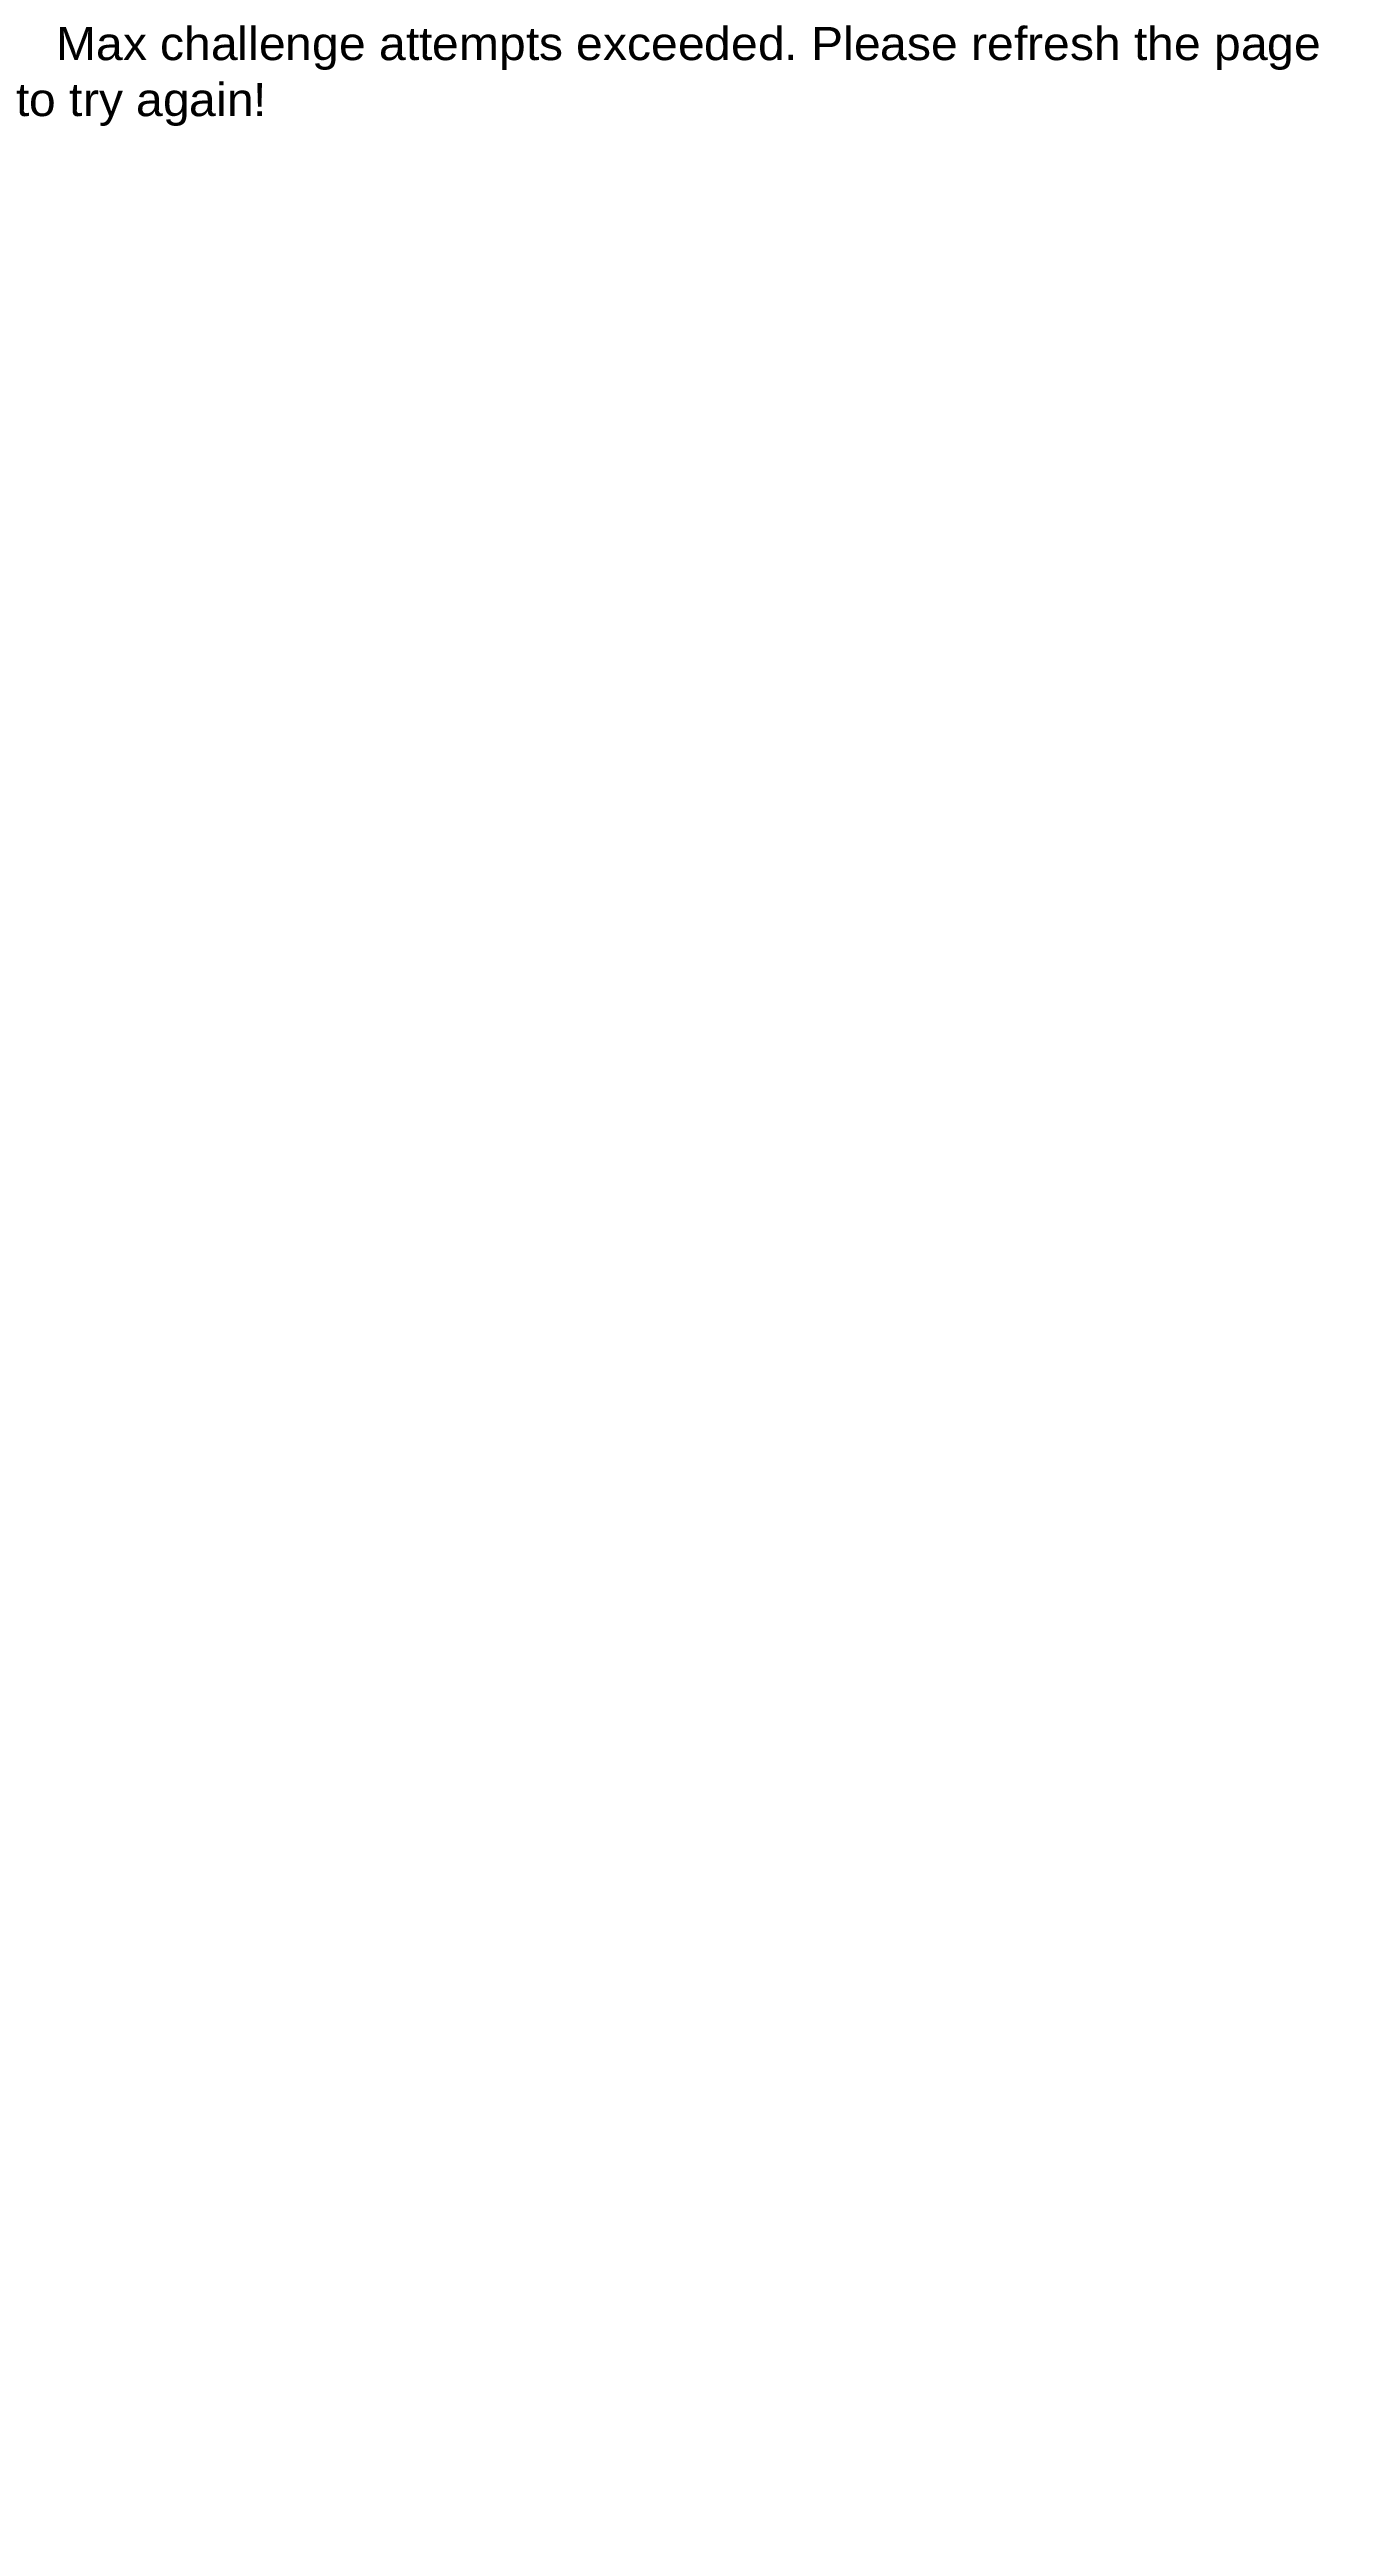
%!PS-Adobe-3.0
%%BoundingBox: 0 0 1373 2562
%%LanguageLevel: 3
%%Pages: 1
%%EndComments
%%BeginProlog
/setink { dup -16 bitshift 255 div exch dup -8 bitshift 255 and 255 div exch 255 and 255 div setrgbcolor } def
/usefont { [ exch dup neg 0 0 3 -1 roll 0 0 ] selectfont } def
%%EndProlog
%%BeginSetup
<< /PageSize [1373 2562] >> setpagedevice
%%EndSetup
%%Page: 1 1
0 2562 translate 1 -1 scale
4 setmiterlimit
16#FFFFFF setink
0 0 1373 2562 rectfill
/LiberationSans-Regular 48 usefont
16#000000 setink
56 60 moveto (Max challenge attempts exceeded. Please refresh the page) show
16 116 moveto (to try again!) show
showpage
%%EOF
